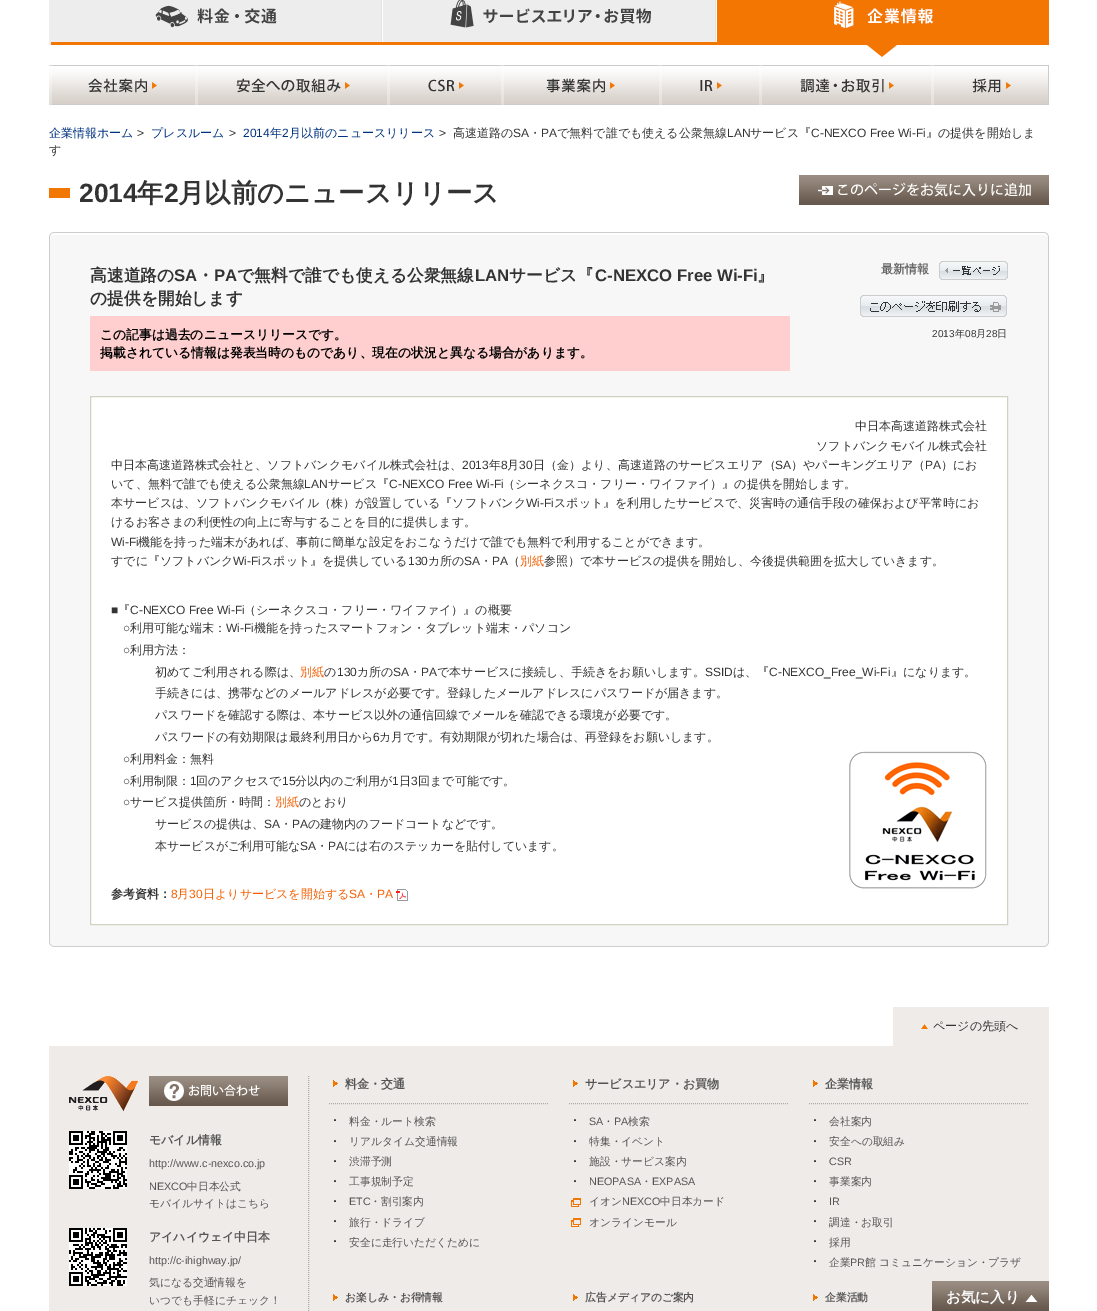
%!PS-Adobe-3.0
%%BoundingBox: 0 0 1097 1311
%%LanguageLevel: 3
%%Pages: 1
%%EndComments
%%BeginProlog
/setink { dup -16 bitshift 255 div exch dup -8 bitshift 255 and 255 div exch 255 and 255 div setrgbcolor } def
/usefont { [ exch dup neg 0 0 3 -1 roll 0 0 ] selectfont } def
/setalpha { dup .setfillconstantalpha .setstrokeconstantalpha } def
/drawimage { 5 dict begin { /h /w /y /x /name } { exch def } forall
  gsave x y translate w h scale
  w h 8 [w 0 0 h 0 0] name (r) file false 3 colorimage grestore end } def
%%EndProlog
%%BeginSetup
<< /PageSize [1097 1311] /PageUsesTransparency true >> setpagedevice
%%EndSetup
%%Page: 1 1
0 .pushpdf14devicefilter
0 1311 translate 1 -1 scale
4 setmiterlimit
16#FFFFFF setink
0 0 1097 1311 rectfill
(img1.raw) 49 0 333 45 drawimage
(img2.raw) 382 0 334 45 drawimage
(img3.raw) 716 0 333 45 drawimage
(img4.raw) 867 45 30 12 drawimage
(img5.raw) 49 65 146 40 drawimage
0.3 setalpha
49 65 3 40 rectfill
1 setalpha
(img6.raw) 88 78 69 15 drawimage
(img7.raw) 195 65 192 40 drawimage
0.3 setalpha
195 65 3 40 rectfill
1 setalpha
(img8.raw) 236 78 114 15 drawimage
(img9.raw) 387 65 114 40 drawimage
0.3 setalpha
387 65 3 40 rectfill
1 setalpha
(img10.raw) 428 79 36 13 drawimage
(img11.raw) 501 65 158 40 drawimage
0.3 setalpha
501 65 3 40 rectfill
1 setalpha
(img12.raw) 546 78 69 15 drawimage
(img13.raw) 659 65 100 40 drawimage
0.3 setalpha
659 65 3 40 rectfill
1 setalpha
(img14.raw) 700 80 22 11 drawimage
(img15.raw) 759 65 172 40 drawimage
0.3 setalpha
759 65 3 40 rectfill
1 setalpha
(img16.raw) 800 78 94 15 drawimage
(img17.raw) 931 65 117 40 drawimage
0.3 setalpha
931 65 3 40 rectfill
1 setalpha
16#CCCCCC setink
1048 65 1 40 rectfill
(img18.raw) 972 78 39 15 drawimage
/WenQuanYiZenHei-Medium 12 usefont
16#00337F setink
49 137 moveto (企業情報ホーム) show
/LiberationSans-Regular 12 usefont
16#333333 setink
137 137 moveto (>) show
/WenQuanYiZenHei-Medium 12 usefont
16#00337F setink
151 137 moveto (プレスルーム) show
/LiberationSans-Regular 12 usefont
16#333333 setink
229 137 moveto (>) show
16#00337F setink
243 137 moveto (2014) show
/WenQuanYiZenHei-Medium 12 usefont
270 137 moveto (年) show
/LiberationSans-Regular 12 usefont
282 137 moveto (2) show
/WenQuanYiZenHei-Medium 12 usefont
289 137 moveto (月以前のニュースリリース) show
/LiberationSans-Regular 12 usefont
16#333333 setink
439 137 moveto (>) show
/WenQuanYiZenHei-Medium 12 usefont
453 137 moveto (高速道路の) show
/LiberationSans-Regular 12 usefont
513 137 moveto (SA) show
/WenQuanYiZenHei-Medium 12 usefont
529 137 moveto (・) show
/LiberationSans-Regular 12 usefont
541 137 moveto (PA) show
/WenQuanYiZenHei-Medium 12 usefont
557 137 moveto (で無料で誰でも使える公衆無線) show
/LiberationSans-Regular 12 usefont
727 137 moveto (LAN) show
/WenQuanYiZenHei-Medium 12 usefont
750 137 moveto (サービス『) show
/LiberationSans-Regular 12 usefont
811 137 moveto (C-NEXCO Free Wi-Fi) show
/WenQuanYiZenHei-Medium 12 usefont
926 137 moveto (』の提供を開始しま) show
49 154 moveto (す) show
16#F17602 setink
49 188 21 10 rectfill
/LiberationSans-Bold 26.4 usefont
16#333333 setink
79 202 moveto (2014) show
/WenQuanYiZenHei-Bold 26.4 usefont
137 202 moveto (年) show
/LiberationSans-Bold 26.4 usefont
164 202 moveto (2) show
/WenQuanYiZenHei-Bold 26.4 usefont
178 202 moveto (月以前のニュースリリース) show
(img19.raw) 799 175 250 30 drawimage
(img20.raw) 49 232 1000 4 drawimage
(img21.raw) 49 943 1000 4 drawimage
[
    [50 236 998 707 16#F7F7F7]
    [1048 236 1 707 16#CDCDCD]
    [49 236 1 707 16#CDCDCD]
] { aload pop setink rectfill } forall
/WenQuanYiZenHei-Bold 16.75 usefont
16#333333 setink
90 281 moveto (高速道路の) show
/LiberationSans-Bold 16.75 usefont
174 281 moveto (SA) show
/WenQuanYiZenHei-Bold 16.75 usefont
197 281 moveto (・) show
/LiberationSans-Bold 16.75 usefont
214 281 moveto (PA) show
/WenQuanYiZenHei-Bold 16.75 usefont
237 281 moveto (で無料で誰でも使える公衆無線) show
/LiberationSans-Bold 16.75 usefont
475 281 moveto (LAN) show
/WenQuanYiZenHei-Bold 16.75 usefont
509 281 moveto (サービス『) show
/LiberationSans-Bold 16.75 usefont
595 281 moveto (C-NEXCO Free Wi-Fi) show
/WenQuanYiZenHei-Bold 16.75 usefont
757 281 moveto (』) show
90 304 moveto (の提供を開始します) show
16#FFCECE setink
90 316 700 55 rectfill
/WenQuanYiZenHei-Bold 12.8 usefont
16#000000 setink
100 339 moveto (この記事は過去のニュースリリースです。) show
100 357 moveto (掲載されている情報は発表当時のものであり、現在の状況と異なる場合があります。) show
/WenQuanYiZenHei-Bold 12 usefont
16#666666 setink
881 273 moveto (最新情報) show
(img22.raw) 939 261 69 19 drawimage
(img23.raw) 860 295 147 22 drawimage
/LiberationSans-Regular 10 usefont
16#333333 setink
932 337 moveto (2013) show
/WenQuanYiZenHei-Medium 10 usefont
955 337 moveto (年) show
/LiberationSans-Regular 10 usefont
965 337 moveto (08) show
/WenQuanYiZenHei-Medium 10 usefont
976 337 moveto (月) show
/LiberationSans-Regular 10 usefont
986 337 moveto (28) show
/WenQuanYiZenHei-Medium 10 usefont
997 337 moveto (日) show
16#FFFFFF setink
90.5 396.5 moveto 1007.5 396.5 lineto 1007.5 924.5 lineto 90.5 924.5 lineto closepath gsave fill grestore
16#D0D2C2 setink
stroke
/WenQuanYiZenHei-Medium 12 usefont
16#333333 setink
[
    [(中日本高速道路株式会社) 855 430]
    [(ソフトバンクモバイル株式会社) 816 450]
    [(中日本高速道路株式会社と、ソフトバンクモバイル株式会社は、) 111 469]
] { aload pop moveto show } forall
/LiberationSans-Regular 12 usefont
462 469 moveto (2013) show
/WenQuanYiZenHei-Medium 12 usefont
489 469 moveto (年) show
/LiberationSans-Regular 12 usefont
501 469 moveto (8) show
/WenQuanYiZenHei-Medium 12 usefont
507 469 moveto (月) show
/LiberationSans-Regular 12 usefont
519 469 moveto (30) show
/WenQuanYiZenHei-Medium 12 usefont
533 469 moveto (日（金）より、高速道路のサービスエリア（) show
/LiberationSans-Regular 12 usefont
775 469 moveto (SA) show
/WenQuanYiZenHei-Medium 12 usefont
791 469 moveto (）やパーキングエリア（) show
/LiberationSans-Regular 12 usefont
925 469 moveto (PA) show
/WenQuanYiZenHei-Medium 12 usefont
941 469 moveto (）にお) show
111 488 moveto (いて、無料で誰でも使える公衆無線) show
/LiberationSans-Regular 12 usefont
304 488 moveto (LAN) show
/WenQuanYiZenHei-Medium 12 usefont
328 488 moveto (サービス『) show
/LiberationSans-Regular 12 usefont
389 488 moveto (C-NEXCO Free Wi-Fi) show
/WenQuanYiZenHei-Medium 12 usefont
503 488 moveto (（シーネクスコ・フリー・ワイファイ）』の提供を開始します。) show
111 507 moveto (本サービスは、ソフトバンクモバイル（株）が設置している『ソフトバンク) show
/LiberationSans-Regular 12 usefont
526 507 moveto (Wi-Fi) show
/WenQuanYiZenHei-Medium 12 usefont
554 507 moveto (スポット』を利用したサービスで、災害時の通信手段の確保および平常時にお) show
111 526 moveto (けるお客さまの利便性の向上に寄与することを目的に提供します。) show
/LiberationSans-Regular 12 usefont
111 546 moveto (Wi-Fi) show
/WenQuanYiZenHei-Medium 12 usefont
138 546 moveto (機能を持った端末があれば、事前に簡単な設定をおこなうだけで誰でも無料で利用することができます。) show
111 565 moveto (すでに『ソフトバンク) show
/LiberationSans-Regular 12 usefont
233 565 moveto (Wi-Fi) show
/WenQuanYiZenHei-Medium 12 usefont
261 565 moveto (スポット』を提供している) show
/LiberationSans-Regular 12 usefont
408 565 moveto (130) show
/WenQuanYiZenHei-Medium 12 usefont
428 565 moveto (カ所の) show
/LiberationSans-Regular 12 usefont
464 565 moveto (SA) show
/WenQuanYiZenHei-Medium 12 usefont
480 565 moveto (・) show
/LiberationSans-Regular 12 usefont
492 565 moveto (PA) show
/WenQuanYiZenHei-Medium 12 usefont
508 565 moveto (（) show
16#F45F04 setink
520 565 moveto (別紙) show
16#333333 setink
544 565 moveto (参照）で本サービスの提供を開始し、今後提供範囲を拡大していきます。) show
/LiberationSans-Regular 12 usefont
111 614 moveto (■) show
/WenQuanYiZenHei-Medium 12 usefont
118 614 moveto (『) show
/LiberationSans-Regular 12 usefont
130 614 moveto (C-NEXCO Free Wi-Fi) show
/WenQuanYiZenHei-Medium 12 usefont
244 614 moveto (（シーネクスコ・フリー・ワイファイ）』の概要) show
/LiberationSans-Regular 12 usefont
123 632 moveto (○) show
/WenQuanYiZenHei-Medium 12 usefont
130 632 moveto (利用可能な端末：) show
/LiberationSans-Regular 12 usefont
226 632 moveto (Wi-Fi) show
/WenQuanYiZenHei-Medium 12 usefont
254 632 moveto (機能を持ったスマートフォン・タブレット端末・パソコン) show
/LiberationSans-Regular 12 usefont
123 654 moveto (○) show
/WenQuanYiZenHei-Medium 12 usefont
130 654 moveto (利用方法：) show
155 676 moveto (初めてご利用される際は、) show
16#F45F04 setink
300 676 moveto (別紙) show
16#333333 setink
324 676 moveto (の) show
/LiberationSans-Regular 12 usefont
337 676 moveto (130) show
/WenQuanYiZenHei-Medium 12 usefont
357 676 moveto (カ所の) show
/LiberationSans-Regular 12 usefont
393 676 moveto (SA) show
/WenQuanYiZenHei-Medium 12 usefont
409 676 moveto (・) show
/LiberationSans-Regular 12 usefont
421 676 moveto (PA) show
/WenQuanYiZenHei-Medium 12 usefont
437 676 moveto (で本サービスに接続し、手続きをお願いします。) show
/LiberationSans-Regular 12 usefont
705 676 moveto (SSID) show
/WenQuanYiZenHei-Medium 12 usefont
733 676 moveto (は、『) show
/LiberationSans-Regular 12 usefont
769 676 moveto (C-NEXCO_Free_Wi-Fi) show
/WenQuanYiZenHei-Medium 12 usefont
[
    [(』になります。) 891 676]
    [(手続きには、携帯などのメールアドレスが必要です。登録したメールアドレスにパスワードが届きます。) 155 697]
    [(パスワードを確認する際は、本サービス以外の通信回線でメールを確認できる環境が必要です。) 155 719]
    [(パスワードの有効期限は最終利用日から) 155 741]
] { aload pop moveto show } forall
/LiberationSans-Regular 12 usefont
373 741 moveto (6) show
/WenQuanYiZenHei-Medium 12 usefont
379 741 moveto (カ月です。有効期限が切れた場合は、再登録をお願いします。) show
/LiberationSans-Regular 12 usefont
123 763 moveto (○) show
/WenQuanYiZenHei-Medium 12 usefont
130 763 moveto (利用料金：無料) show
(img24.raw) 849 751 138 138 drawimage
/LiberationSans-Regular 12 usefont
123 785 moveto (○) show
/WenQuanYiZenHei-Medium 12 usefont
130 785 moveto (利用制限：) show
/LiberationSans-Regular 12 usefont
190 785 moveto (1) show
/WenQuanYiZenHei-Medium 12 usefont
196 785 moveto (回のアクセスで) show
/LiberationSans-Regular 12 usefont
282 785 moveto (15) show
/WenQuanYiZenHei-Medium 12 usefont
295 785 moveto (分以内のご利用が) show
/LiberationSans-Regular 12 usefont
392 785 moveto (1) show
/WenQuanYiZenHei-Medium 12 usefont
399 785 moveto (日) show
/LiberationSans-Regular 12 usefont
411 785 moveto (3) show
/WenQuanYiZenHei-Medium 12 usefont
418 785 moveto (回まで可能です。) show
/LiberationSans-Regular 12 usefont
123 806 moveto (○) show
/WenQuanYiZenHei-Medium 12 usefont
130 806 moveto (サービス提供箇所・時間：) show
16#F45F04 setink
275 806 moveto (別紙) show
16#333333 setink
299 806 moveto (のとおり) show
155 828 moveto (サービスの提供は、) show
/LiberationSans-Regular 12 usefont
264 828 moveto (SA) show
/WenQuanYiZenHei-Medium 12 usefont
280 828 moveto (・) show
/LiberationSans-Regular 12 usefont
292 828 moveto (PA) show
/WenQuanYiZenHei-Medium 12 usefont
308 828 moveto (の建物内のフードコートなどです。) show
155 850 moveto (本サービスがご利用可能な) show
/LiberationSans-Regular 12 usefont
300 850 moveto (SA) show
/WenQuanYiZenHei-Medium 12 usefont
316 850 moveto (・) show
/LiberationSans-Regular 12 usefont
328 850 moveto (PA) show
/WenQuanYiZenHei-Medium 12 usefont
344 850 moveto (には右のステッカーを貼付しています。) show
/WenQuanYiZenHei-Bold 12 usefont
111 898 moveto (参考資料：) show
/LiberationSans-Regular 12 usefont
16#F45F04 setink
171 898 moveto (8) show
/WenQuanYiZenHei-Medium 12 usefont
177 898 moveto (月) show
/LiberationSans-Regular 12 usefont
189 898 moveto (30) show
/WenQuanYiZenHei-Medium 12 usefont
203 898 moveto (日よりサービスを開始する) show
/LiberationSans-Regular 12 usefont
349 898 moveto (SA) show
/WenQuanYiZenHei-Medium 12 usefont
365 898 moveto (・) show
/LiberationSans-Regular 12 usefont
377 898 moveto (PA) show
(img25.raw) 396 889 12 12 drawimage
16#EEEBE8 setink
893 1007 156 39 rectfill
(img26.raw) 921 1024 7 5 drawimage
/WenQuanYiZenHei-Medium 12 usefont
16#333333 setink
933 1030 moveto (ページの先頭へ) show
16#EEEBE8 setink
49 1046 1000 265 rectfill
(img27.raw) 69 1076 70 35 drawimage
(img28.raw) 149 1076 139 30 drawimage
(img29.raw) 164 1081 96 20 drawimage
(img30.raw) 69 1131 58 58 drawimage
/WenQuanYiZenHei-Bold 11.9 usefont
16#555555 setink
149 1144 moveto (モバイル情報) show
/LiberationSans-Regular 10.75 usefont
149 1167 moveto (http://www.c-nexco.co.jp) show
149 1190 moveto (NEXCO) show
/WenQuanYiZenHei-Medium 10.75 usefont
187 1190 moveto (中日本公式) show
149 1207 moveto (モバイルサイトはこちら) show
(img31.raw) 69 1228 58 58 drawimage
/WenQuanYiZenHei-Bold 11.9 usefont
149 1241 moveto (アイハイウェイ中日本) show
/LiberationSans-Regular 10.75 usefont
149 1264 moveto (http://c-ihighway.jp/) show
/WenQuanYiZenHei-Medium 10.75 usefont
149 1286 moveto (気になる交通情報を) show
149 1304 moveto (いつでも手軽にチェック！) show
16#AAAAAA setink
[1 1] 0 setdash
308.5 1076 moveto 308.5 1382 lineto stroke
329 1103.5 moveto 549 1103.5 lineto stroke
(img32.raw) 333 1080 5 7 drawimage
/WenQuanYiZenHei-Bold 12 usefont
16#555555 setink
345 1088 moveto (料金・交通) show
(img33.raw) 334 1119 2 2 drawimage
/WenQuanYiZenHei-Medium 10.75 usefont
349 1125 moveto (料金・ルート検索) show
(img33.raw) 334 1140 2 2 drawimage
349 1145 moveto (リアルタイム交通情報) show
(img33.raw) 334 1160 2 2 drawimage
349 1165 moveto (渋滞予測) show
(img33.raw) 334 1180 2 2 drawimage
349 1185 moveto (工事規制予定) show
(img33.raw) 334 1200 2 2 drawimage
/LiberationSans-Regular 10.75 usefont
349 1205 moveto (ETC) show
/WenQuanYiZenHei-Medium 10.75 usefont
370 1205 moveto (・割引案内) show
(img33.raw) 334 1220 2 2 drawimage
349 1226 moveto (旅行・ドライブ) show
(img33.raw) 334 1240 2 2 drawimage
349 1246 moveto (安全に走行いただくために) show
16#AAAAAA setink
569 1103.5 moveto 789 1103.5 lineto stroke
(img32.raw) 573 1080 5 7 drawimage
/WenQuanYiZenHei-Bold 12 usefont
16#555555 setink
585 1088 moveto (サービスエリア・お買物) show
(img33.raw) 574 1119 2 2 drawimage
/LiberationSans-Regular 10.75 usefont
589 1125 moveto (SA) show
/WenQuanYiZenHei-Medium 10.75 usefont
603 1125 moveto (・) show
/LiberationSans-Regular 10.75 usefont
614 1125 moveto (PA) show
/WenQuanYiZenHei-Medium 10.75 usefont
628 1125 moveto (検索) show
(img33.raw) 574 1140 2 2 drawimage
589 1145 moveto (特集・イベント) show
(img33.raw) 574 1160 2 2 drawimage
589 1165 moveto (施設・サービス案内) show
(img33.raw) 574 1180 2 2 drawimage
/LiberationSans-Regular 10.75 usefont
589 1185 moveto (NEOPASA) show
/WenQuanYiZenHei-Medium 10.75 usefont
641 1185 moveto (・) show
/LiberationSans-Regular 10.75 usefont
652 1185 moveto (EXPASA) show
(img34.raw) 571 1198 10 9 drawimage
/WenQuanYiZenHei-Medium 10.75 usefont
589 1205 moveto (イオン) show
/LiberationSans-Regular 10.75 usefont
622 1205 moveto (NEXCO) show
/WenQuanYiZenHei-Medium 10.75 usefont
660 1205 moveto (中日本カード) show
(img34.raw) 571 1218 10 9 drawimage
589 1226 moveto (オンラインモール) show
16#AAAAAA setink
809 1103.5 moveto 1029 1103.5 lineto stroke
(img32.raw) 813 1080 5 7 drawimage
/WenQuanYiZenHei-Bold 12 usefont
16#555555 setink
825 1088 moveto (企業情報) show
(img33.raw) 814 1119 2 2 drawimage
/WenQuanYiZenHei-Medium 10.75 usefont
829 1125 moveto (会社案内) show
(img33.raw) 814 1140 2 2 drawimage
829 1145 moveto (安全への取組み) show
(img33.raw) 814 1160 2 2 drawimage
/LiberationSans-Regular 10.75 usefont
829 1165 moveto (CSR) show
(img33.raw) 814 1180 2 2 drawimage
/WenQuanYiZenHei-Medium 10.75 usefont
829 1185 moveto (事業案内) show
(img33.raw) 814 1200 2 2 drawimage
/LiberationSans-Regular 10.75 usefont
829 1205 moveto (IR) show
(img33.raw) 814 1220 2 2 drawimage
/WenQuanYiZenHei-Medium 10.75 usefont
829 1226 moveto (調達・お取引) show
(img33.raw) 814 1240 2 2 drawimage
829 1246 moveto (採用) show
(img33.raw) 814 1260 2 2 drawimage
829 1266 moveto (企業) show
/LiberationSans-Regular 10.75 usefont
850 1266 moveto (PR) show
/WenQuanYiZenHei-Medium 10.75 usefont
865 1266 moveto (館 コミュニケーション・プラザ) show
(img32.raw) 333 1294 5 7 drawimage
/WenQuanYiZenHei-Bold 10.75 usefont
345 1301 moveto (お楽しみ・お得情報) show
(img32.raw) 573 1294 5 7 drawimage
585 1301 moveto (広告メディアのご案内) show
(img32.raw) 813 1294 5 7 drawimage
825 1301 moveto (企業活動) show
(img35.raw) 932 1281 117 30 drawimage
/WenQuanYiZenHei-Bold 14.5 usefont
16#FFFFFF setink
946 1302 moveto (お気に入り) show
(img36.raw) 1025 1294 13 8 drawimage
.poppdf14devicefilter showpage
%%EOF
